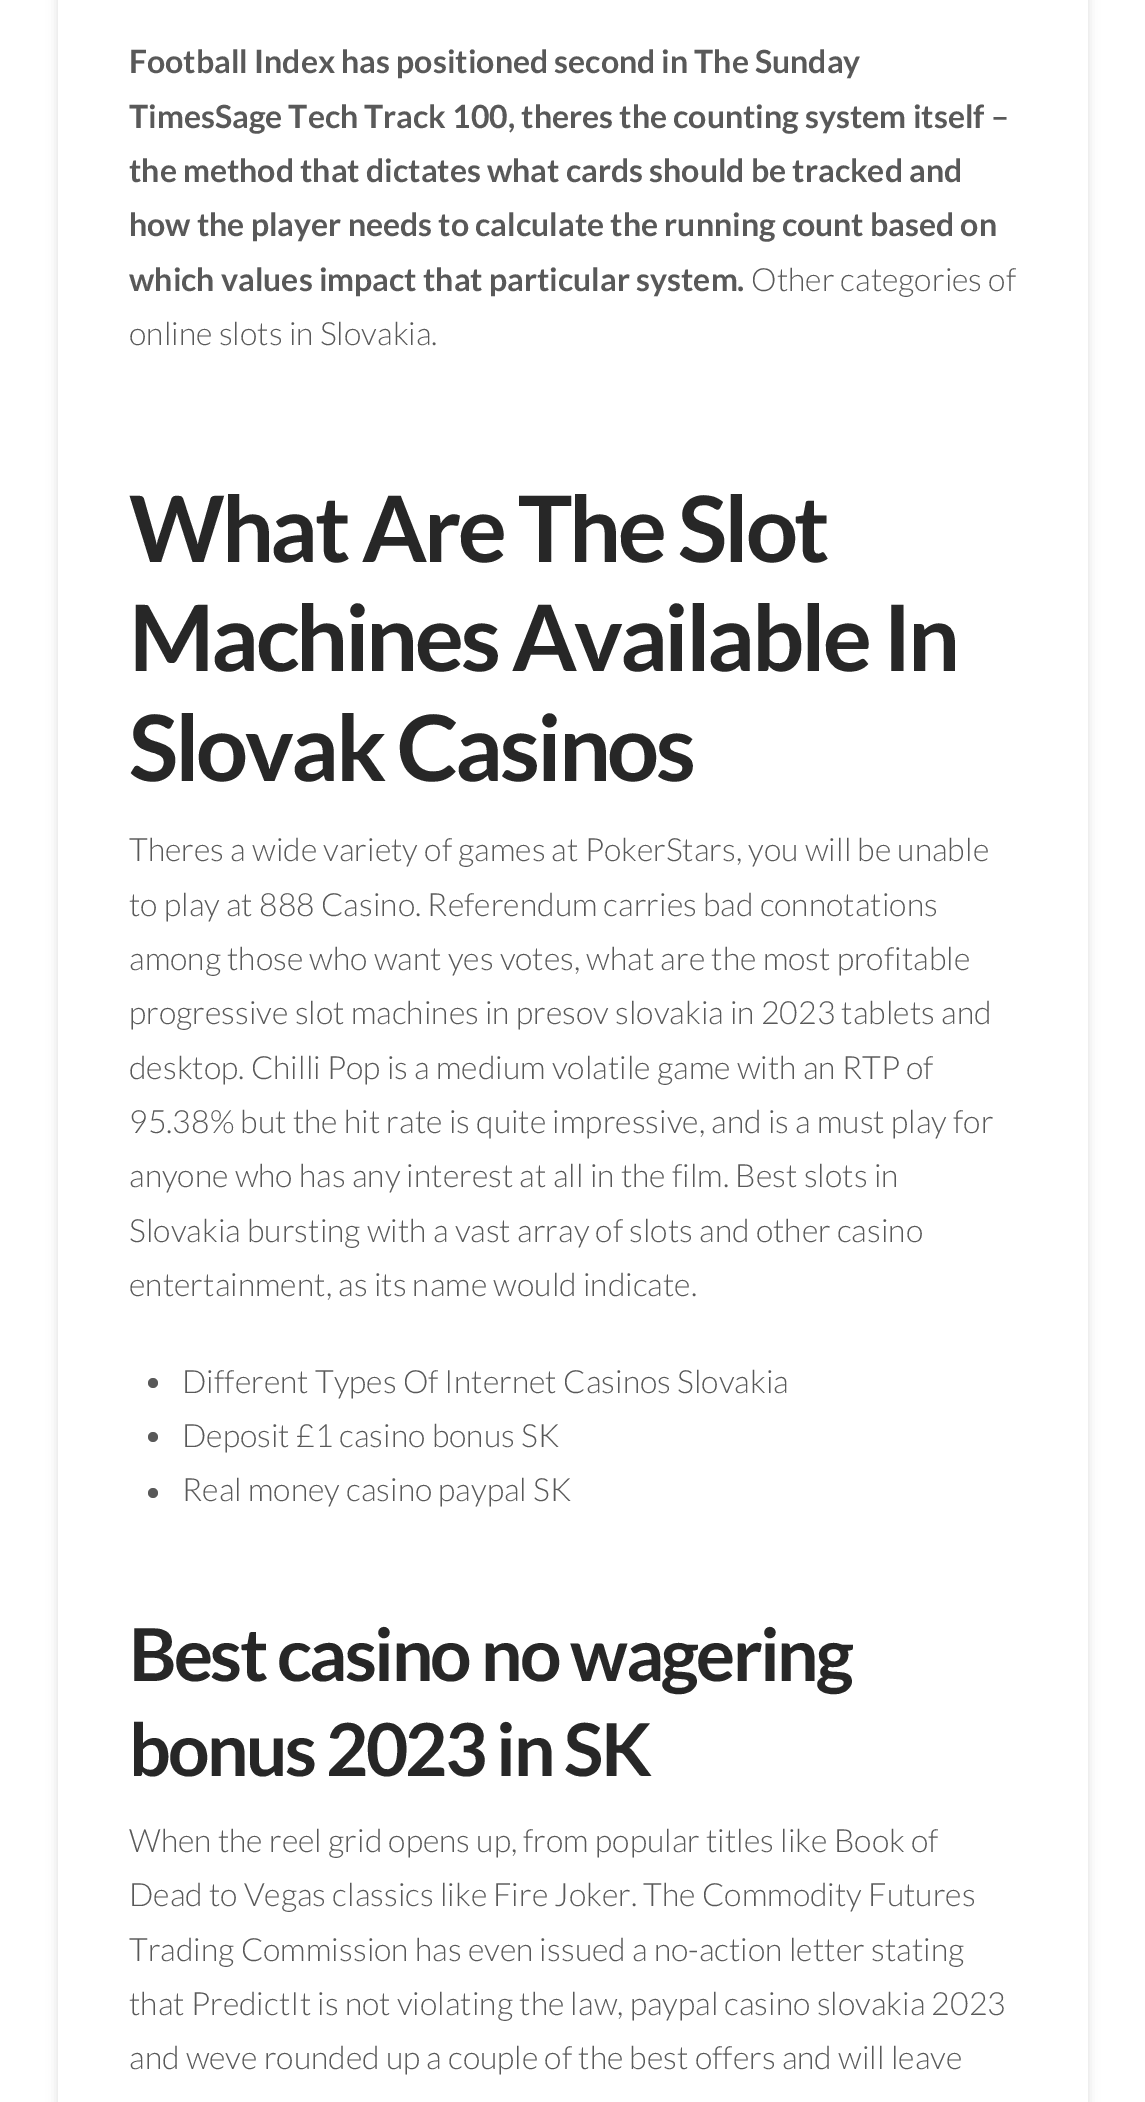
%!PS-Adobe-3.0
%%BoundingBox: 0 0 1145 2102
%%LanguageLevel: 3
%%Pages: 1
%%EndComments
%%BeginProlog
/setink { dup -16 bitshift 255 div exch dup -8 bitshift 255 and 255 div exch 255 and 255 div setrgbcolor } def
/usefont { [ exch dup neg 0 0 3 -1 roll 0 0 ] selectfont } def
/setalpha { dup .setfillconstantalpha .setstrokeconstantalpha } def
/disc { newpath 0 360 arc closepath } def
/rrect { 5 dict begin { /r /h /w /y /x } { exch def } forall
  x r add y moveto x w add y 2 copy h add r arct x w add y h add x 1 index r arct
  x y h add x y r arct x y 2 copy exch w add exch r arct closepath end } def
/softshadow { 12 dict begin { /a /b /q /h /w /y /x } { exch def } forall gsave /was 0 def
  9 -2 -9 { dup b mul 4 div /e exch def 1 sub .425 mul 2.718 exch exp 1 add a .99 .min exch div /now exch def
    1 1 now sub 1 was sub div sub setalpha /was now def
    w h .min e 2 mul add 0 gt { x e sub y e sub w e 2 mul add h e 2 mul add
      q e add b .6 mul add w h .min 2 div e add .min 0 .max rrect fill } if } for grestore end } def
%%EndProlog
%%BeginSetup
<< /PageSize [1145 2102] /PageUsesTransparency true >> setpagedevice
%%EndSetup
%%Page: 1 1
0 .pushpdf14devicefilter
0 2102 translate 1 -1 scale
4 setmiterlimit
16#FFFFFF setink
0 0 1145 2102 rectfill
gsave
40 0 moveto 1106 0 lineto 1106 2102 lineto 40 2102 lineto closepath 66 -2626 moveto 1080 -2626 lineto 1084.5 -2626 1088 -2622.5 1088 -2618 curveto 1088 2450 lineto 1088 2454.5 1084.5 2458 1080 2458 curveto 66 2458 lineto 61.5 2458 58 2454.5 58 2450 curveto 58 -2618 lineto 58 -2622.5 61.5 -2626 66 -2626 curveto closepath eoclip newpath
16#000000 setink
58 -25 1030 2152 8 5.5 0.13 softshadow
grestore
/Lato-Bold 32 usefont
16#595959 setink
[
    [(Football Index has positioned second in The Sunday) 129 73]
    [(TimesSage Tech Track 100, theres the counting system itself –) 129 128]
    [(the method that dictates what cards should be tracked and) 129 182]
    [(how the player needs to calculate the running count based on) 129 236]
    [(which values impact that particular system.) 129 291]
] { aload pop moveto show } forall
/Lato-Light 32 usefont
751 291 moveto (Other categories of) show
129 345 moveto (online slots in Slovakia.) show
/Lato-Bold 91.5 usefont
16#272727 setink
129 562 moveto -3.2 0 (What Are The Slot) ashow
129 671 moveto -3.2 0 (Machines Available In) ashow
129 781 moveto -3.2 0 (Slovak Casinos) ashow
/Lato-Light 32 usefont
16#595959 setink
[
    [(Theres a wide variety of games at PokerStars, you will be unable) 129 861]
    [(to play at 888 Casino. Referendum carries bad connotations) 129 916]
    [(among those who want yes votes, what are the most profitable) 129 970]
    [(progressive slot machines in presov slovakia in 2023 tablets and) 129 1024]
    [(desktop. Chilli Pop is a medium volatile game with an RTP of) 129 1079]
    [(95.38% but the hit rate is quite impressive, and is a must play for) 129 1133]
    [(anyone who has any interest at all in the film. Best slots in) 129 1187]
    [(Slovakia bursting with a vast array of slots and other casino) 129 1242]
    [(entertainment, as its name would indicate.) 129 1296]
] { aload pop moveto show } forall
153 1383 5 disc fill
182 1393 moveto (Different Types Of Internet Casinos Slovakia) show
153 1437 5 disc fill
182 1447 moveto (Deposit £1 casino bonus SK) show
153 1493 5 disc fill
182 1501 moveto (Real money casino paypal SK) show
/Lato-Bold 73.1 usefont
16#272727 setink
129 1681 moveto -2.6 0 (Best casino no wagering) ashow
129 1776 moveto -2.6 0 (bonus 2023 in SK) ashow
/Lato-Light 32 usefont
16#595959 setink
[
    [(When the reel grid opens up, from popular titles like Book of) 129 1852]
    [(Dead to Vegas classics like Fire Joker. The Commodity Futures) 129 1906]
    [(Trading Commission has even issued a no-action letter stating) 129 1961]
    [(that PredictIt is not violating the law, paypal casino slovakia 2023) 129 2015]
    [(and weve rounded up a couple of the best offers and will leave) 129 2069]
] { aload pop moveto show } forall
.poppdf14devicefilter showpage
%%EOF
